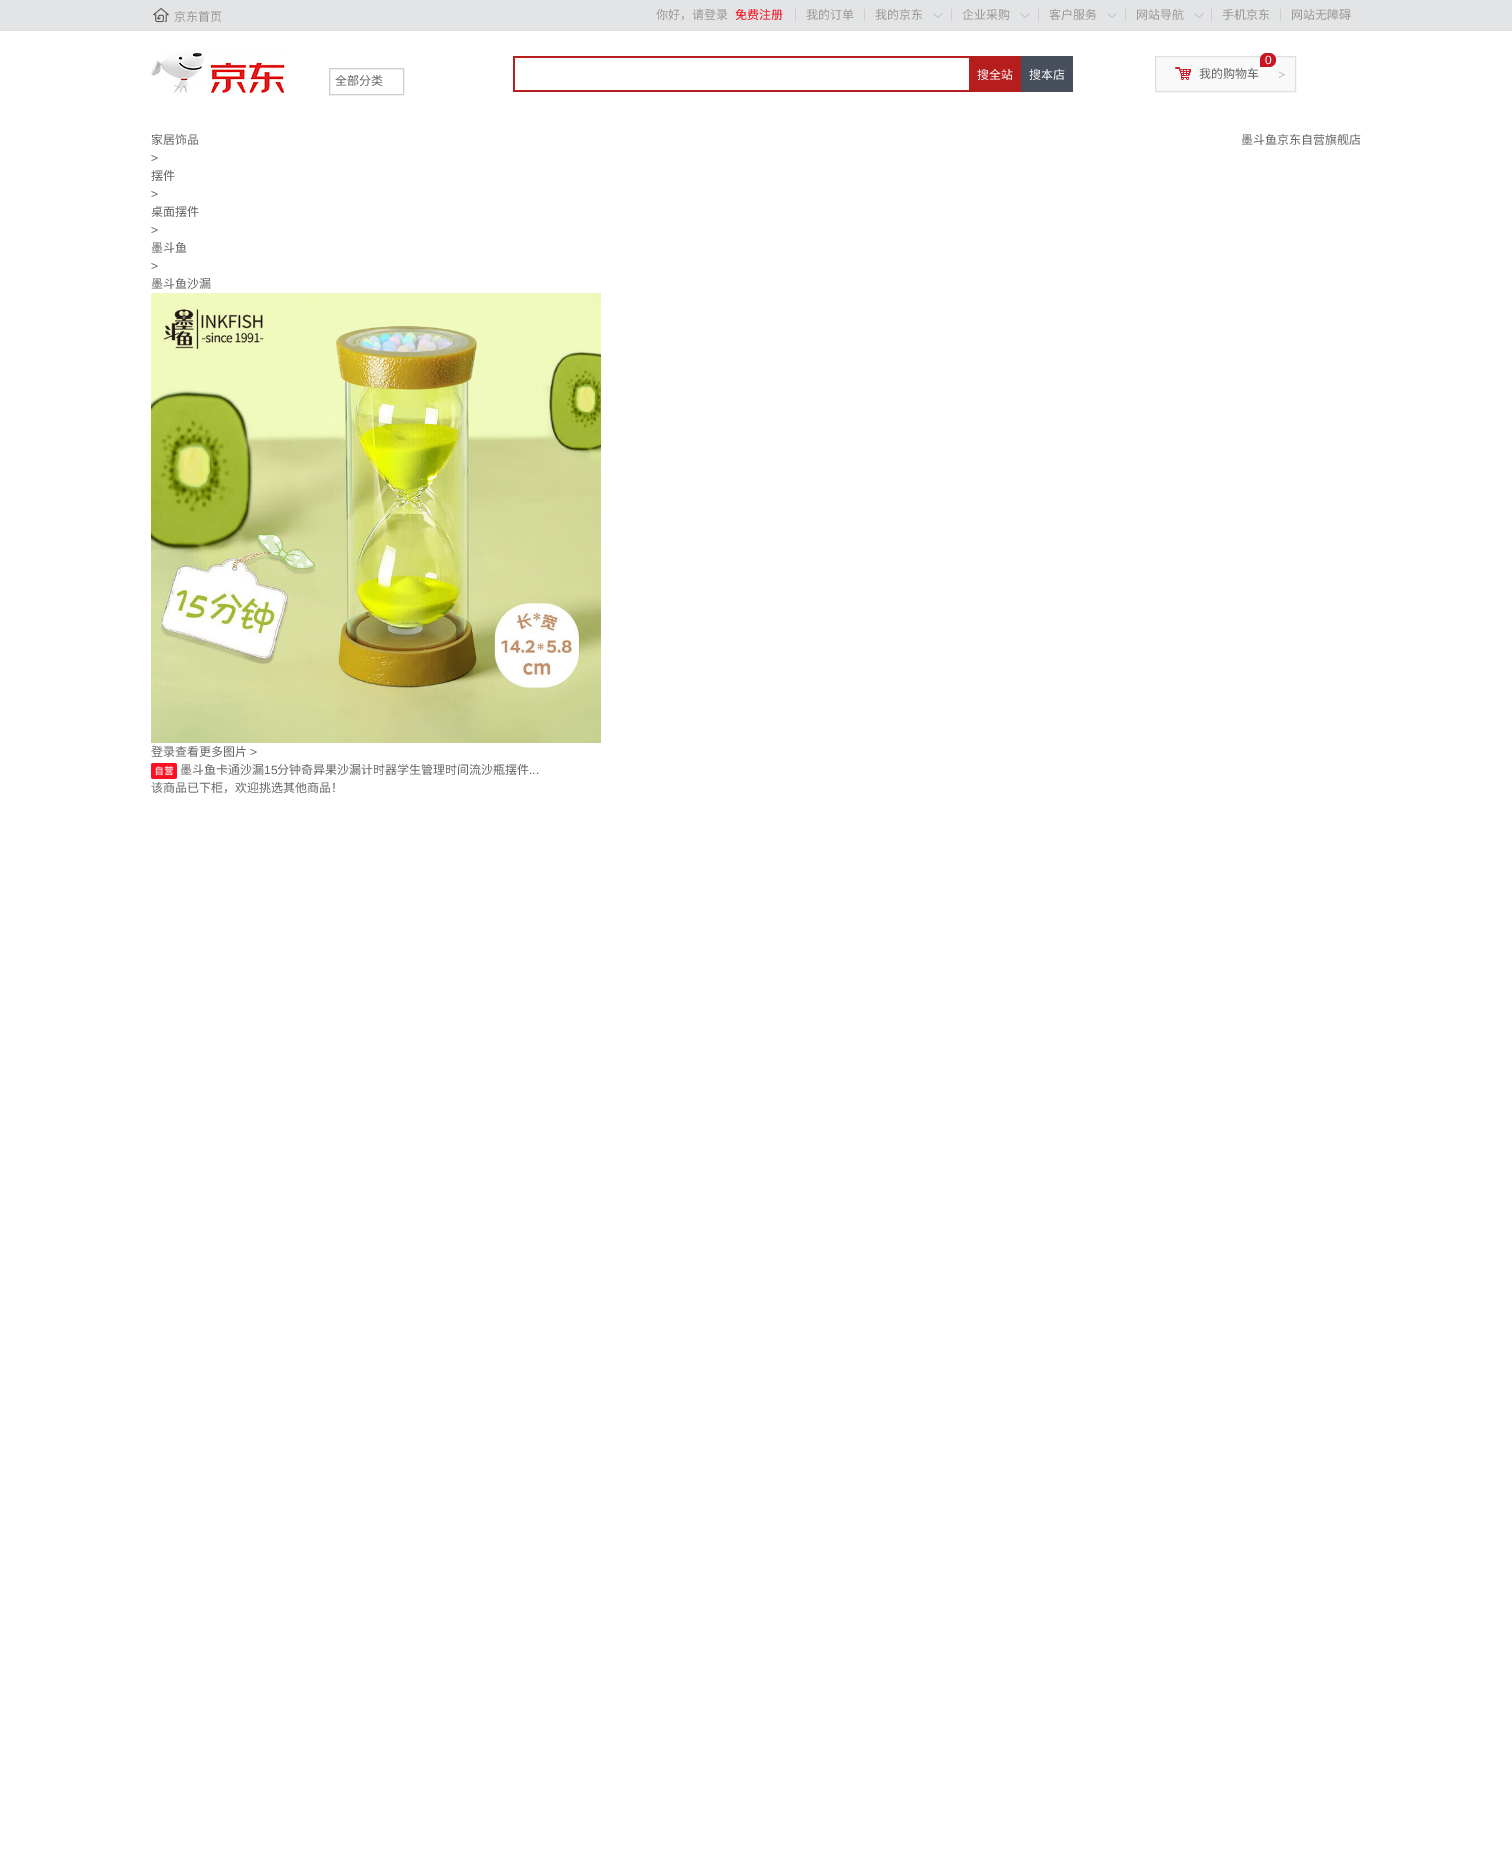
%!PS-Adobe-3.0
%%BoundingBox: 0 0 1512 1854
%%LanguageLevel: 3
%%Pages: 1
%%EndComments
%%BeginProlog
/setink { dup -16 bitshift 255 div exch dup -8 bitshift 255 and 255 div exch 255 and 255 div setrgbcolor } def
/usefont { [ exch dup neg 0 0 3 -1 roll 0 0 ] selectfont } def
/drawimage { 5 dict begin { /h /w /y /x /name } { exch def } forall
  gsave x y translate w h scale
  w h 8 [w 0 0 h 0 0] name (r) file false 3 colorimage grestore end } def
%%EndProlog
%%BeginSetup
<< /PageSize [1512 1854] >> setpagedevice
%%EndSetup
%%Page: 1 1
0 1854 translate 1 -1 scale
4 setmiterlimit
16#FFFFFF setink
0 0 1512 1854 rectfill
16#E3E4E5 setink
0 0 1512 30 rectfill
16#DDDDDD setink
0 30 1512 1 rectfill
(img1.raw) 153 8 16 15 drawimage
/NotoSansCJKSC-Regular 12 usefont
16#999999 setink
174 21 moveto (京东首页) show
656 19 moveto (你好，请登录) show
16#F30213 setink
735 19 moveto (免费注册) show
16#CCCCCC setink
795 9 1 12 rectfill
16#999999 setink
806 19 moveto (我的订单) show
16#CCCCCC setink
864 9 1 12 rectfill
16#999999 setink
875 19 moveto (我的京东) show
(img2.raw) 933 13 10 5 drawimage
16#CCCCCC setink
951 9 1 12 rectfill
16#999999 setink
962 19 moveto (企业采购) show
(img2.raw) 1020 13 10 5 drawimage
16#CCCCCC setink
1038 9 1 12 rectfill
16#999999 setink
1049 19 moveto (客户服务) show
(img2.raw) 1107 13 10 5 drawimage
16#CCCCCC setink
1125 9 1 12 rectfill
16#999999 setink
1136 19 moveto (网站导航) show
(img2.raw) 1194 13 10 5 drawimage
16#CCCCCC setink
1211 9 1 12 rectfill
16#999999 setink
1222 19 moveto (手机京东) show
16#CCCCCC setink
1280 9 1 12 rectfill
16#999999 setink
1291 19 moveto (网站无障碍) show
(img3.raw) 151 51 134 42 drawimage
16#CCCCCC setink
329.5 68.5 74 26 rectstroke
16#666666 setink
335 85 moveto (全部分类) show
[
    [513 56 456 2 16#B61D1D]
    [513 90 456 2 16#B61D1D]
    [513 56 2 36 16#B61D1D]
    [969 56 52 36 16#B61D1D]
] { aload pop setink rectfill } forall
16#FFFFFF setink
977 79 moveto (搜全站) show
16#474E5C setink
1021 56 52 36 rectfill
16#FFFFFF setink
1029 79 moveto (搜本店) show
16#F9F9F9 setink
1155.5 56.5 moveto 1295.5 56.5 lineto 1295.5 91.5 lineto 1155.5 91.5 lineto closepath gsave fill grestore
16#DFDFDF setink
stroke
16#C81623 setink
1267 53 moveto 1269 53 lineto 1273 53 1276 56 1276 60 curveto 1276 64 1273 67 1269 67 curveto 1260 67 lineto 1260 60 lineto 1260 56 1263 53 1267 53 curveto closepath fill
/LiberationSans-Regular 12 usefont
16#FFFFFF setink
1265 64 moveto (0) show
(img4.raw) 1175 67 16 13 drawimage
/NotoSansCJKSC-Regular 12 usefont
16#666666 setink
1199 78 moveto (我的购物车) show
/LiberationSerif-Regular 13 usefont
16#999999 setink
1278 79 moveto (>) show
/NotoSansCJKSC-Regular 12 usefont
16#666666 setink
151 144 moveto (家居饰品) show
/LiberationSans-Regular 12 usefont
151 162 moveto (>) show
/NotoSansCJKSC-Regular 12 usefont
151 180 moveto (摆件) show
/LiberationSans-Regular 12 usefont
151 198 moveto (>) show
/NotoSansCJKSC-Regular 12 usefont
151 216 moveto (桌面摆件) show
/LiberationSans-Regular 12 usefont
151 234 moveto (>) show
/NotoSansCJKSC-Regular 12 usefont
151 252 moveto (墨斗鱼) show
/LiberationSans-Regular 12 usefont
151 270 moveto (>) show
/NotoSansCJKSC-Regular 12 usefont
151 288 moveto (墨斗鱼沙漏) show
1241 144 moveto (墨斗鱼京东自营旗舰店) show
(img5.raw) 151 293 450 450 drawimage
151 756 moveto (登录查看更多图片) show
/LiberationSans-Regular 12 usefont
250 756 moveto (>) show
(img6.raw) 151 763 26 16 drawimage
/NotoSansCJKSC-Regular 12 usefont
180 774 moveto (墨斗鱼卡通沙漏) show
/LiberationSans-Regular 12 usefont
264 774 moveto (15) show
/NotoSansCJKSC-Regular 12 usefont
277 774 moveto (分钟奇异果沙漏计时器学生管理时间流沙瓶摆件) show
/LiberationSans-Regular 12 usefont
529 774 moveto (...) show
/NotoSansCJKSC-Regular 12 usefont
151 792 moveto (该商品已下柜，欢迎挑选其他商品！) show
showpage
%%EOF
